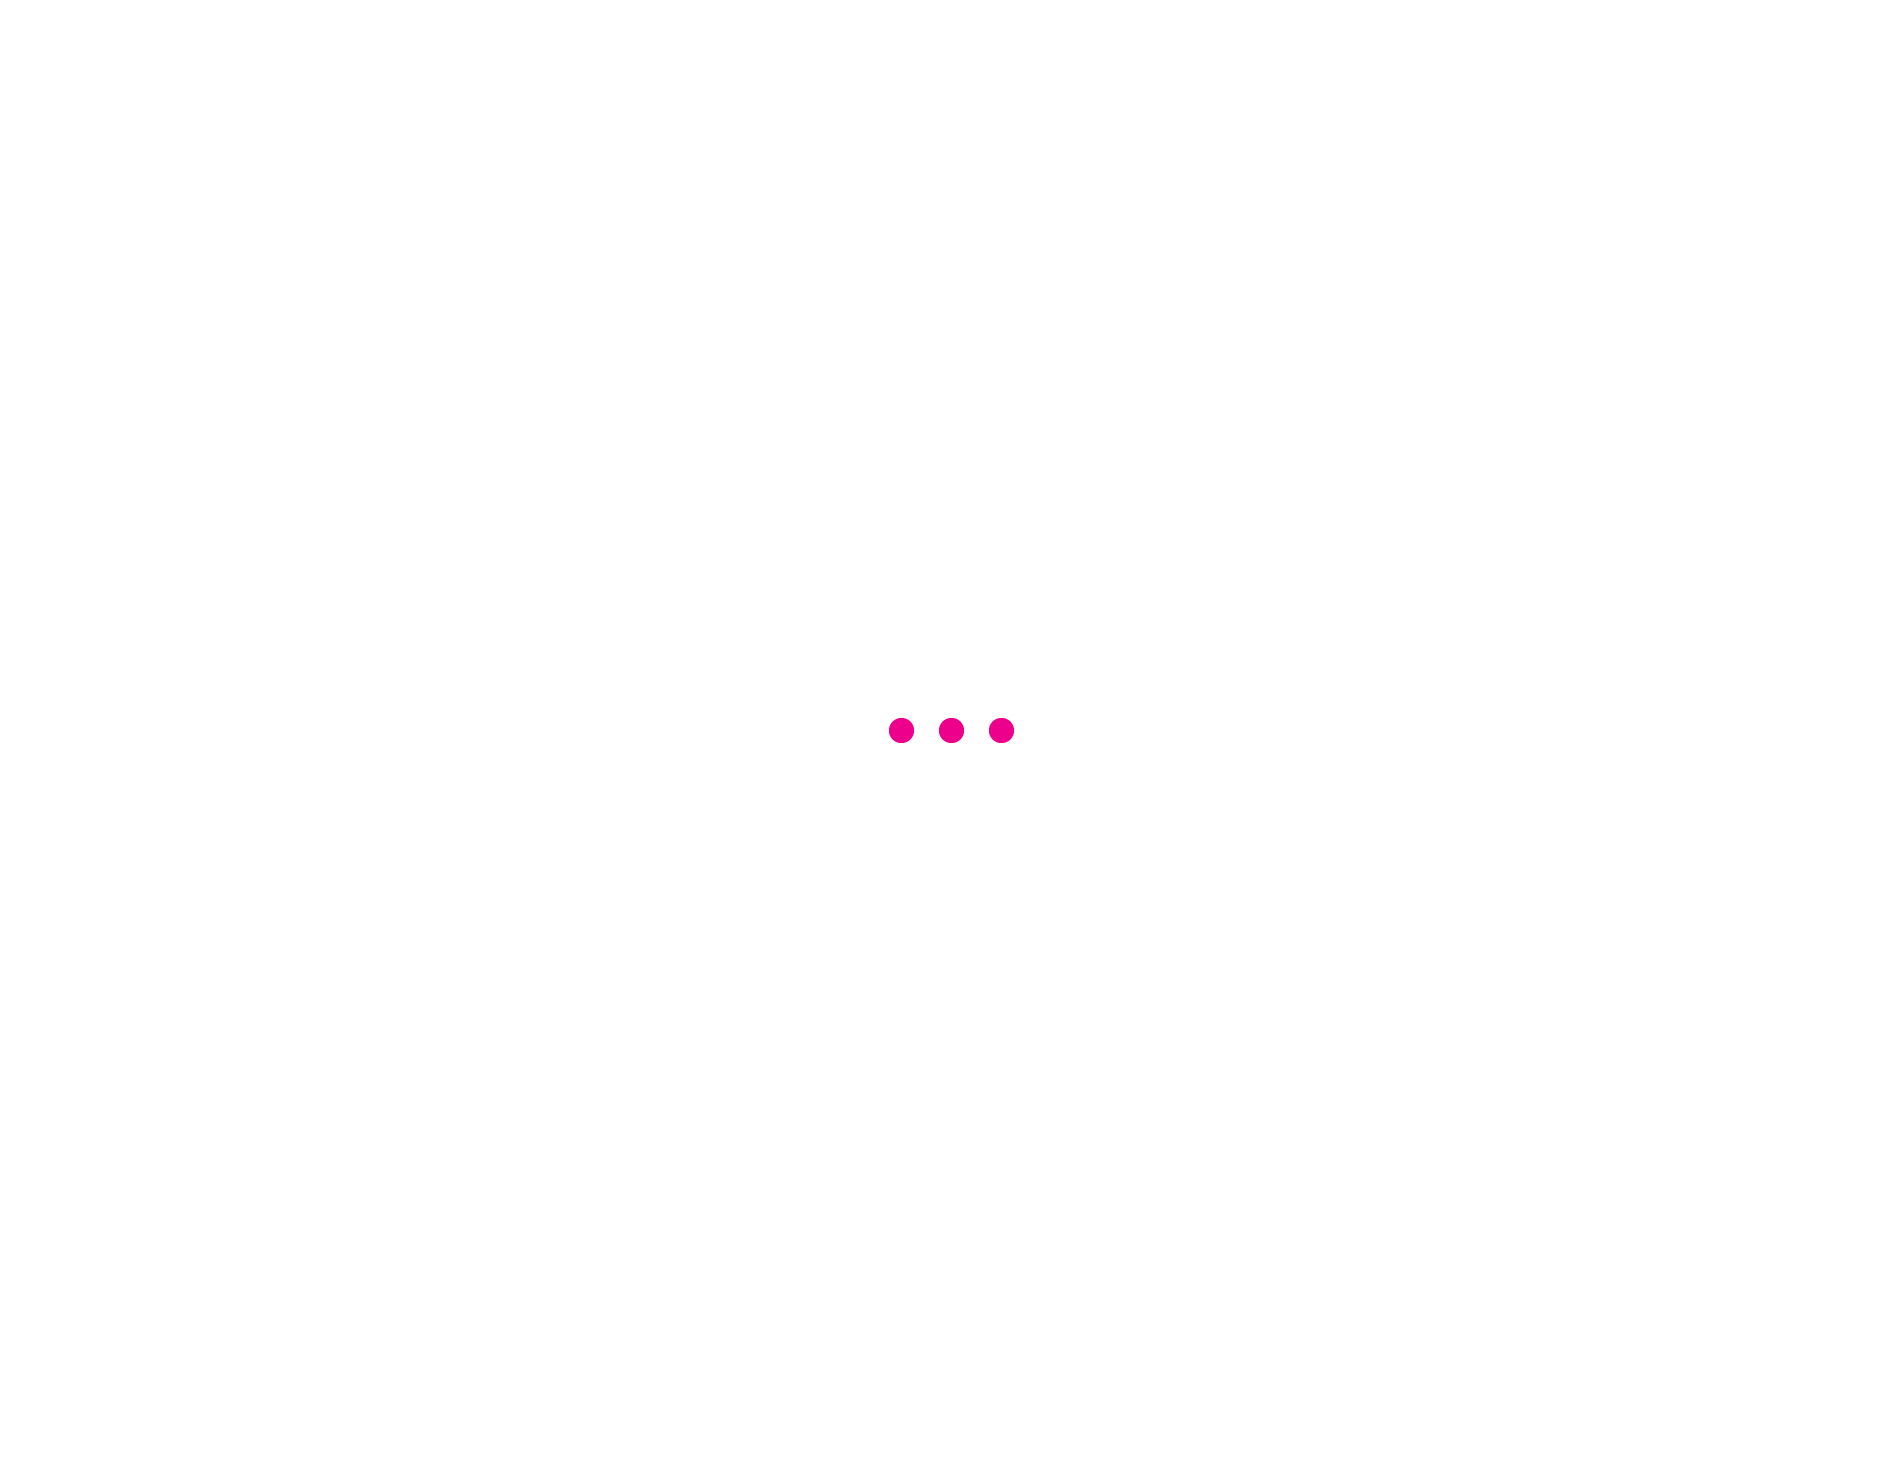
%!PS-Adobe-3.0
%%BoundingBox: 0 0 1902 1468
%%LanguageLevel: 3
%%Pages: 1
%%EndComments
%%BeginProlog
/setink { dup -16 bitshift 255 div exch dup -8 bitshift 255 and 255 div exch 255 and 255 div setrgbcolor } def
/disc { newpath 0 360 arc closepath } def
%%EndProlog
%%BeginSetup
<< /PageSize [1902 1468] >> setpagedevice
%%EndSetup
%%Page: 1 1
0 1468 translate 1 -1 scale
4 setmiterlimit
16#FFFFFF setink
0 0 1902 1468 rectfill
16#EC008C setink
901.5 730.5 12.5 disc fill
951.5 730.5 12.5 disc fill
1001.5 730.5 12.5 disc fill
showpage
%%EOF
